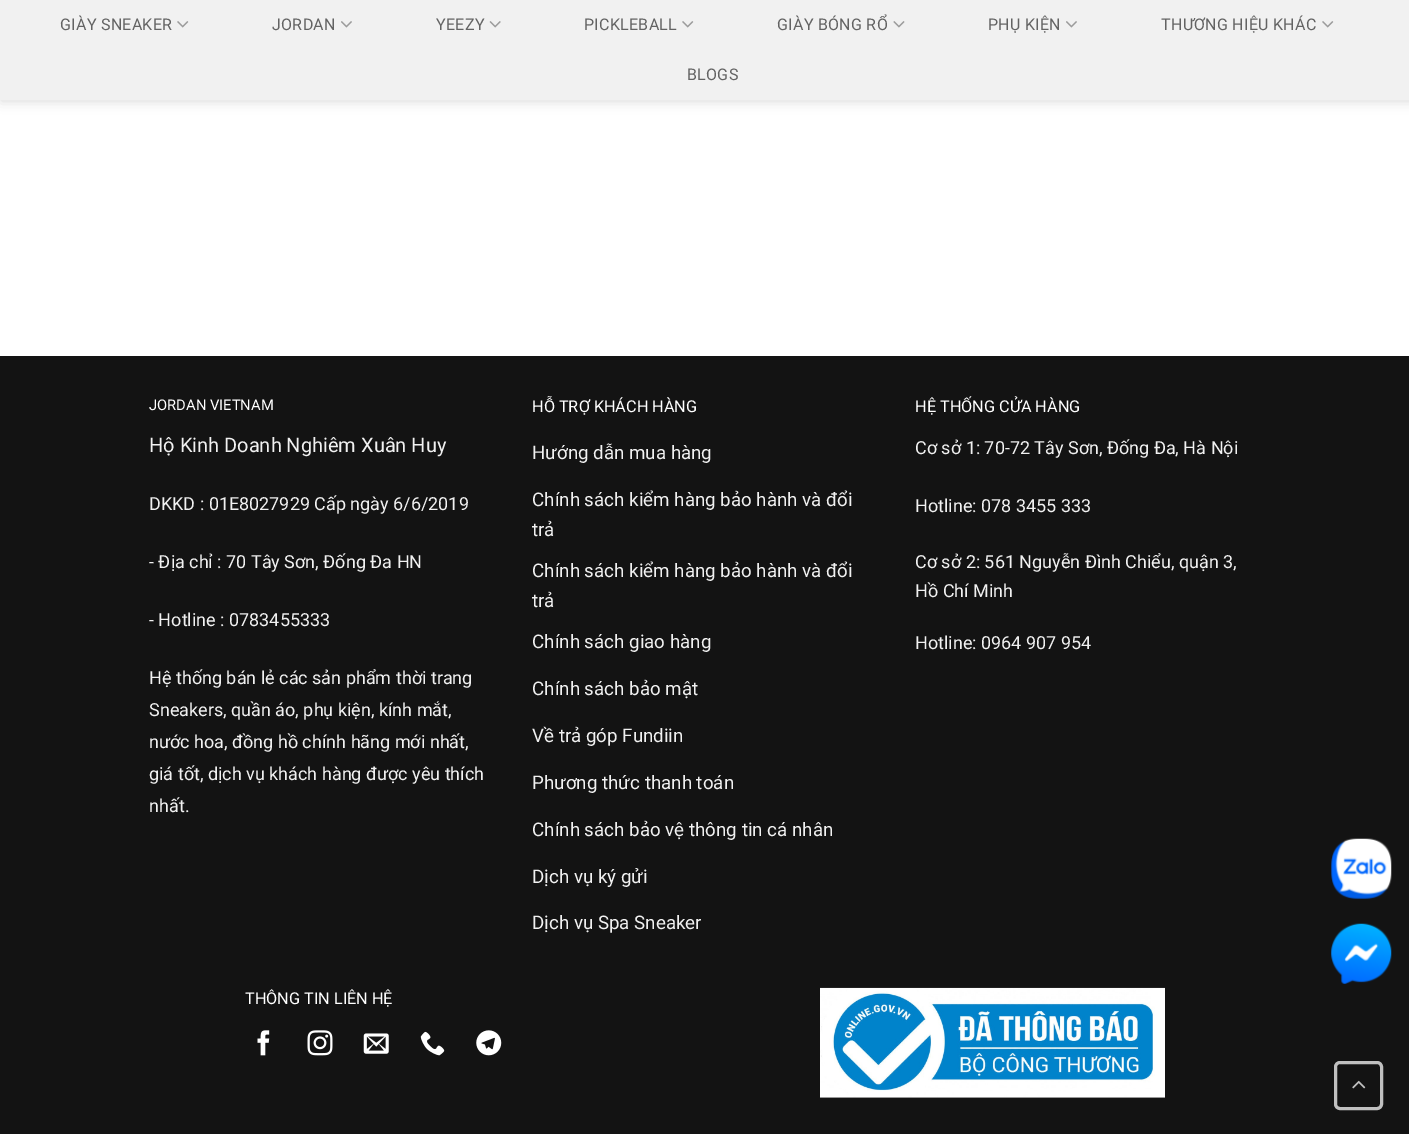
%!PS-Adobe-3.0
%%BoundingBox: 0 0 1409 1134
%%LanguageLevel: 3
%%Pages: 1
%%EndComments
%%BeginProlog
/setink { dup -16 bitshift 255 div exch dup -8 bitshift 255 and 255 div exch 255 and 255 div setrgbcolor } def
/usefont { [ exch dup neg 0 0 3 -1 roll 0 0 ] selectfont } def
/setalpha { dup .setfillconstantalpha .setstrokeconstantalpha } def
/rrect { 5 dict begin { /r /h /w /y /x } { exch def } forall
  x r add y moveto x w add y 2 copy h add r arct x w add y h add x 1 index r arct
  x y h add x y r arct x y 2 copy exch w add exch r arct closepath end } def
/softshadow { 12 dict begin { /a /b /q /h /w /y /x } { exch def } forall gsave /was 0 def
  9 -2 -9 { dup b mul 4 div /e exch def 1 sub .425 mul 2.718 exch exp 1 add a .99 .min exch div /now exch def
    1 1 now sub 1 was sub div sub setalpha /was now def
    w h .min e 2 mul add 0 gt { x e sub y e sub w e 2 mul add h e 2 mul add
      q e add b .6 mul add w h .min 2 div e add .min 0 .max rrect fill } if } for grestore end } def
/drawimage { 5 dict begin { /h /w /y /x /name } { exch def } forall
  gsave x y translate w h scale
  w h 8 [w 0 0 h 0 0] name (r) file false 3 colorimage grestore end } def
%%EndProlog
%%BeginSetup
<< /PageSize [1409 1134] /PageUsesTransparency true >> setpagedevice
%%EndSetup
%%Page: 1 1
0 .pushpdf14devicefilter
0 1134 translate 1 -1 scale
4 setmiterlimit
16#FFFFFF setink
0 0 1409 1134 rectfill
16#000000 setink
1 1 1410 100 0 6 0.15 softshadow
16#F1F1F1 setink
0 0 1409 100 rectfill
/Roboto-Regular 16 usefont
16#636363 setink
60 30 moveto 0.3 0 (GIÀY SNEAKER) ashow
(img1.raw) 177 21 12 7 drawimage
272 30 moveto 0.3 0 (JORDAN) ashow
(img2.raw) 341 21 11 7 drawimage
436 30 moveto 0.3 0 (YEEZY) ashow
(img3.raw) 489 21 12 7 drawimage
584 30 moveto 0.3 0 (PICKLEBALL) ashow
(img1.raw) 682 21 12 7 drawimage
777 30 moveto 0.3 0 (GIÀY BÓNG RỔ) ashow
(img4.raw) 893 21 12 7 drawimage
988 30 moveto 0.3 0 (PHỤ KIỆN) ashow
(img2.raw) 1066 21 11 7 drawimage
1161 30 moveto 0.3 0 (THƯƠNG HIỆU KHÁC) ashow
(img1.raw) 1322 21 12 7 drawimage
687 80 moveto 0.3 0 (BLOGS) ashow
16#131313 setink
0 356 1409 778 rectfill
/Roboto-Regular 14.75 usefont
16#FFFFFF setink
149 410 moveto (JORDAN VIETNAM) show
/Roboto-Regular 20 usefont
16#F1F1F1 setink
149 452 moveto (Hộ Kinh Doanh Nghiêm Xuân Huy) show
/Roboto-Regular 18 usefont
[
    [(DKKD : 01E8027929 Cấp ngày 6/6/2019) 149 510]
    [(- Địa chỉ : 70 Tây Sơn, Đống Đa HN) 149 568]
    [(- Hotline : 0783455333) 149 626]
    [(Hệ thống bán lẻ các sản phẩm thời trang) 149 684]
    [(Sneakers, quần áo, phụ kiện, kính mắt,) 149 716]
    [(nước hoa, đồng hồ chính hãng mới nhất,) 149 748]
    [(giá tốt, dịch vụ khách hàng được yêu thích) 149 780]
    [(nhất.) 149 812]
] { aload pop moveto show } forall
/Roboto-Regular 16.25 usefont
16#FFFFFF setink
532 412 moveto (HỖ TRỢ KHÁCH HÀNG) show
/Roboto-Regular 18.75 usefont
16#F1F1F1 setink
[
    [(Hướng dẫn mua hàng) 532 459]
    [(Chính sách kiểm hàng bảo hành và đổi) 532 506]
    [(trả) 532 536]
    [(Chính sách kiểm hàng bảo hành và đổi) 532 577]
    [(trả) 532 607]
    [(Chính sách giao hàng) 532 648]
    [(Chính sách bảo mật) 532 695]
    [(Về trả góp Fundiin) 532 742]
    [(Phương thức thanh toán) 532 789]
    [(Chính sách bảo vệ thông tin cá nhân) 532 836]
    [(Dịch vụ ký gửi) 532 883]
    [(Dịch vụ Spa Sneaker) 532 929]
] { aload pop moveto show } forall
/Roboto-Regular 16.25 usefont
16#FFFFFF setink
915 412 moveto (HỆ THỐNG CỬA HÀNG) show
/Roboto-Regular 18 usefont
16#F1F1F1 setink
[
    [(Cơ sở 1: 70-72 Tây Sơn, Đống Đa, Hà Nội) 915 454]
    [(Hotline: 078 3455 333) 915 512]
    [(Cơ sở 2: 561 Nguyễn Đình Chiểu, quận 3,) 915 568]
    [(Hồ Chí Minh) 915 597]
    [(Hotline: 0964 907 954) 915 649]
] { aload pop moveto show } forall
/Roboto-Regular 16.25 usefont
16#FFFFFF setink
245 1004 moveto (THÔNG TIN LIÊN HỆ) show
(img5.raw) 257 1030 13 26 drawimage
(img6.raw) 307 1030 26 26 drawimage
(img7.raw) 363 1033 26 21 drawimage
(img8.raw) 420 1031 25 25 drawimage
(img9.raw) 476 1030 26 26 drawimage
(img10.raw) 820 987 345 111 drawimage
16#C0C0C0 setink
3 setlinewidth
1335.5 1062.5 46 46 4.5 rrect stroke
(img11.raw) 1352 1080 14 9 drawimage
(img12.raw) 1331 838 61 61 drawimage
(img13.raw) 1331 923 61 61 drawimage
.poppdf14devicefilter showpage
%%EOF
